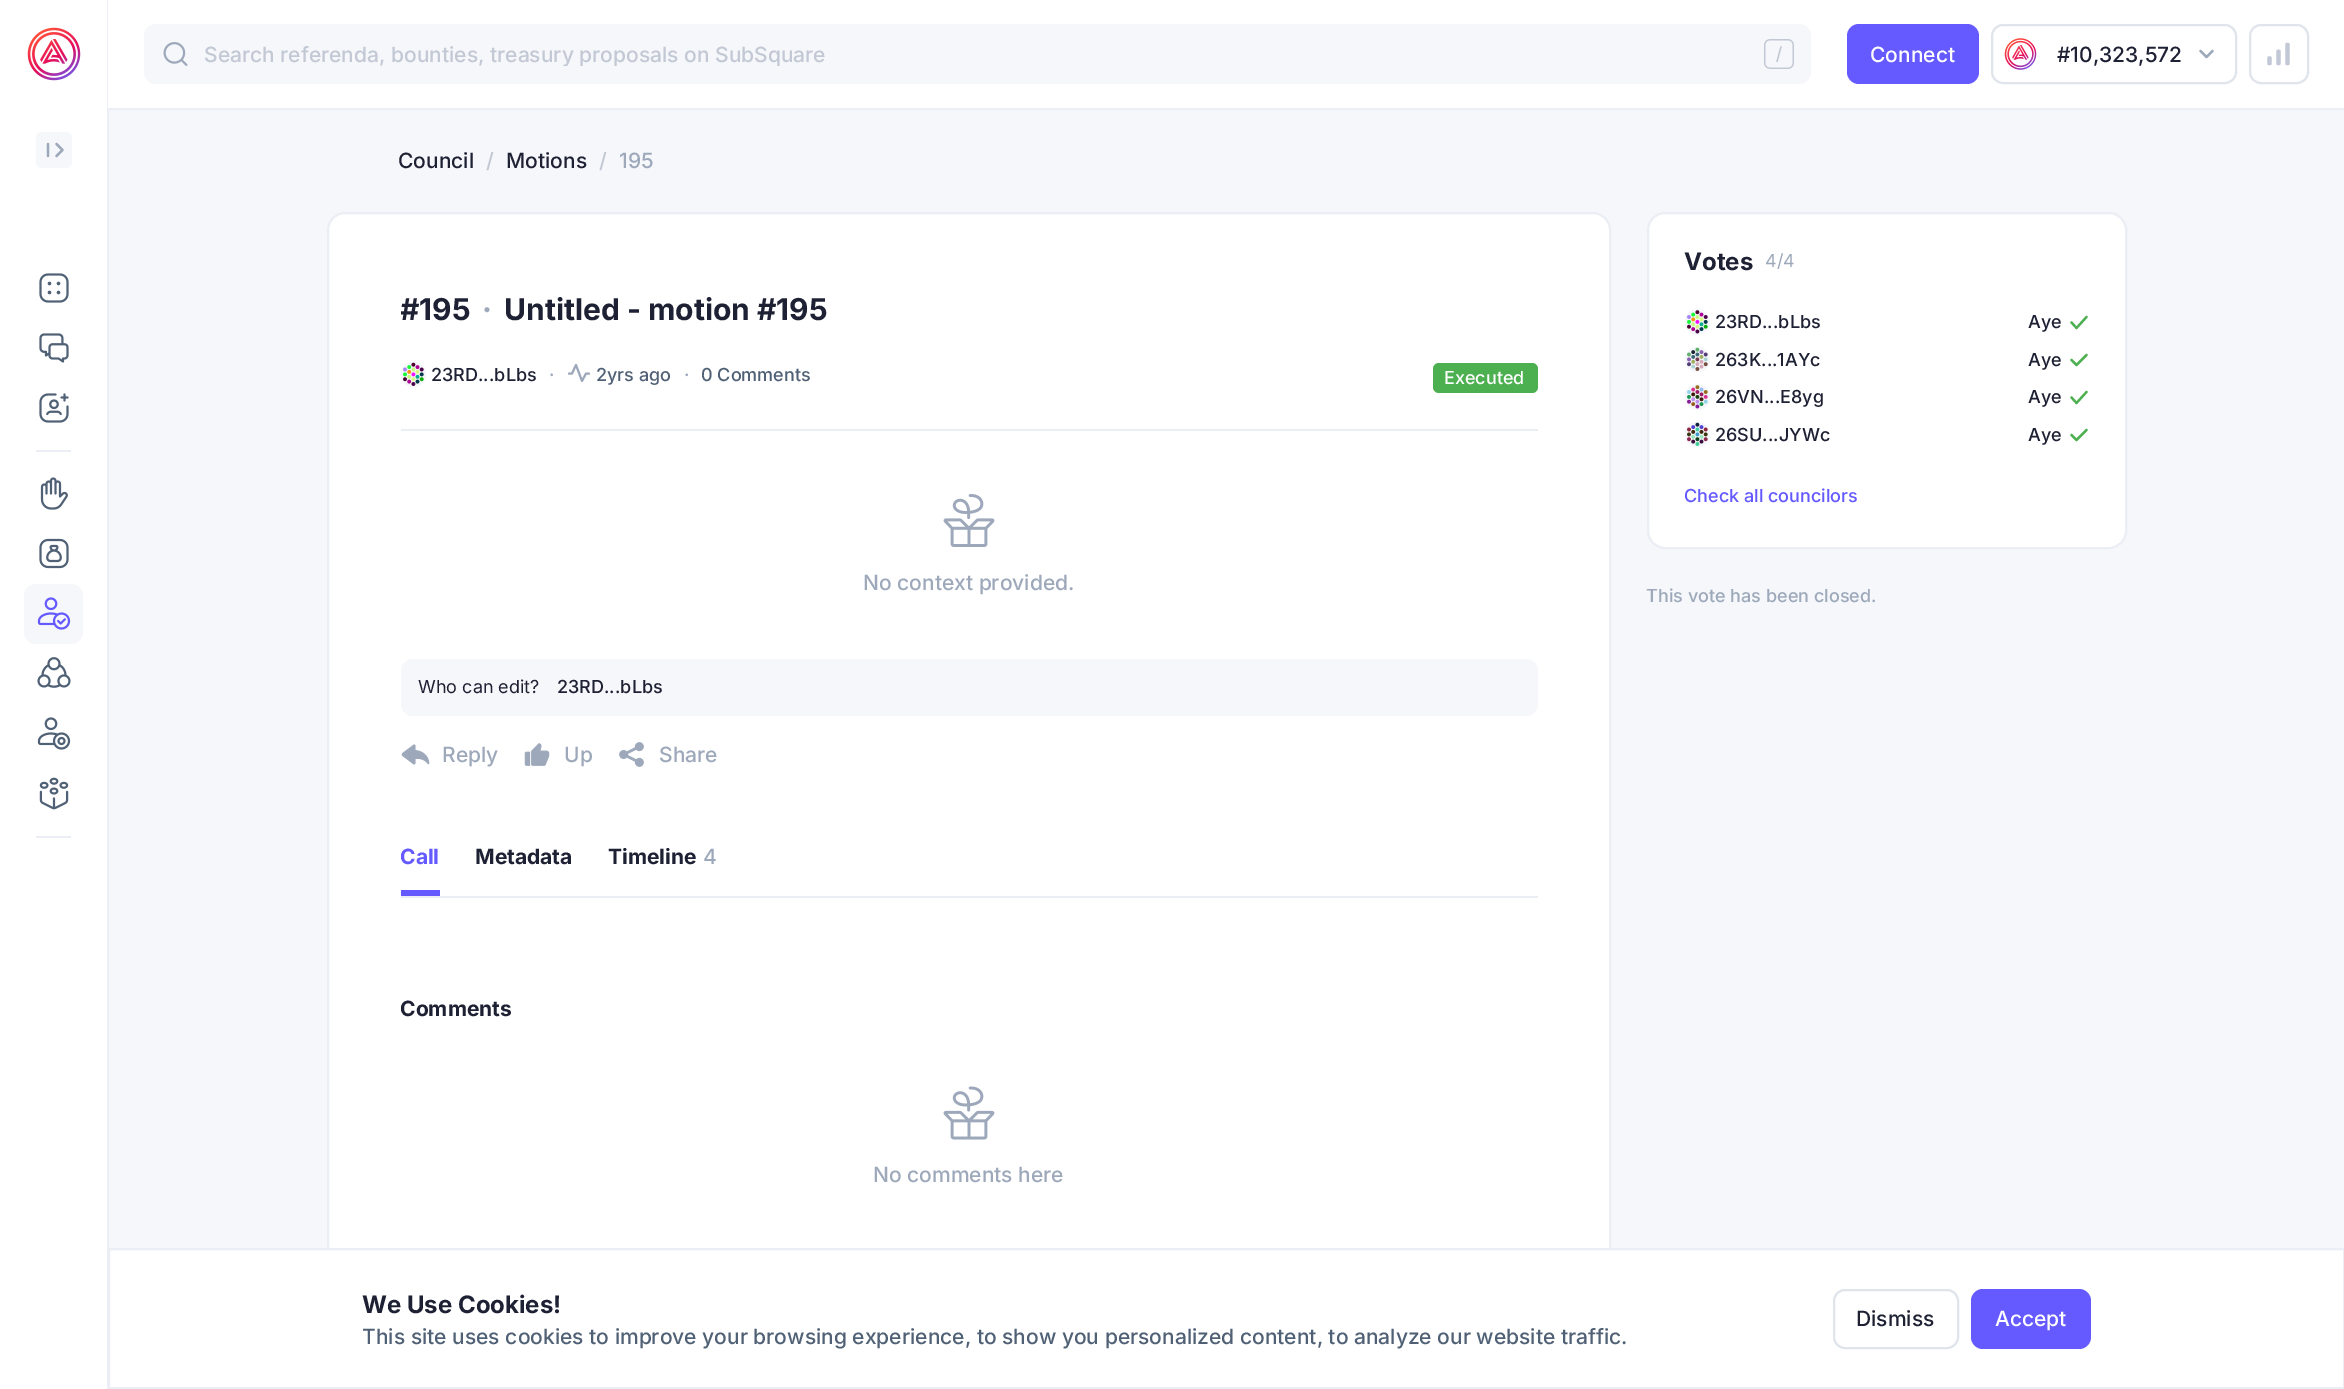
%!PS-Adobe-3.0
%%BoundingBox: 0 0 2344 1389
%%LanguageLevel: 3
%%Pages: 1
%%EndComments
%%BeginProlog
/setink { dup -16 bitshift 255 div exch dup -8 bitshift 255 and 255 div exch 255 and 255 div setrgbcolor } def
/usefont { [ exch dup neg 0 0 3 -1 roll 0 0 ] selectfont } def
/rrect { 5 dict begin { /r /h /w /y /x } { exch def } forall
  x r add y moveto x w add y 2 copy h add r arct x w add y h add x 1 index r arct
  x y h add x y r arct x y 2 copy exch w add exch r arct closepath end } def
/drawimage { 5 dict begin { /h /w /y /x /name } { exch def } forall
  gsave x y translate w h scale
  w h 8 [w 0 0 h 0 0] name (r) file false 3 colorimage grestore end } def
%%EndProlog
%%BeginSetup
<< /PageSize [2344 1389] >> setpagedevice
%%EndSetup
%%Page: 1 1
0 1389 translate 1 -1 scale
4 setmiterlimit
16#F6F7FA setink
0 0 2344 1389 rectfill
16#FFFFFF setink
0 0 107 1389 rectfill
328 213 1282 1171 17 rrect gsave fill grestore
16#EBEEF4 setink
2 setlinewidth
stroke
16#FFFFFF setink
109 1249 moveto 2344 1249 lineto 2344 1388 lineto 109 1388 lineto closepath gsave fill grestore
16#EBEEF4 setink
stroke
107 0 2 1389 rectfill
(img1.raw) 27 27 54 54 drawimage
16#F6F7FA setink
36 132 36 36 6 rrect fill
16#9DA9BB setink
2.2 setlinewidth
1 setlinecap
1 setlinejoin
56.5 156 moveto 62.5 150 lineto 56.5 144 lineto 48 156 moveto 48 144 lineto stroke
(img2.raw) 39 273 30 30 drawimage
(img3.raw) 39 333 30 30 drawimage
(img4.raw) 39 393 30 30 drawimage
16#EBEEF4 setink
36 450 35 2 rectfill
(img5.raw) 40 477 28 33 drawimage
(img6.raw) 39 538 30 31 drawimage
16#F6F7FA setink
24 584 59 60 12 rrect fill
(img7.raw) 37 597 34 33 drawimage
(img8.raw) 37 657 34 31 drawimage
(img9.raw) 37 717 34 33 drawimage
(img10.raw) 39 777 30 33 drawimage
[
    [36 836 35 2 16#EBEEF4]
    [108 0 2236 108 16#FFFFFF]
    [108 108 2236 2 16#EBEEF4]
] { aload pop setink rectfill } forall
16#F6F7FA setink
144 24 1667 60 12 rrect fill
(img11.raw) 163 42 25 24 drawimage
gsave
204 41 1547 25 rectclip
/Inter-Medium 21 usefont
16#C2C8D4 setink
204 62 moveto (Search referenda, bounties, treasury proposals on SubSquare) show
grestore
(img12.raw) 1764 39 30 30 drawimage
16#645AFF setink
1847 24 132 60 12 rrect fill
/Inter-Medium 21 usefont
16#FFFFFF setink
1870 62 moveto (Connect) show
16#E0E4EB setink
2 setlinewidth
0 setlinecap
0 setlinejoin
1992 25 244 58 11 rrect stroke
(img13.raw) 2004 38 33 32 drawimage
16#1E2134 setink
2057 62 moveto (#10,323,572) show
16#9DA9BB setink
2.2 setlinewidth
1 setlinecap
1 setlinejoin
2200.5 51 moveto 2206.5 57 lineto 2212.5 51 lineto stroke
16#E0E4EB setink
2 setlinewidth
0 setlinecap
0 setlinejoin
2250 25 58 58 11 rrect stroke
(img14.raw) 2267 42 23 24 drawimage
16#1E2134 setink
398 168 moveto (Council) show
16#C2C8D4 setink
486 168 moveto (/) show
16#1E2134 setink
506 168 moveto (Motions) show
16#C2C8D4 setink
599 168 moveto (/) show
gsave
620 146 34 30 rectclip
16#9DA9BB setink
619 168 moveto (195) show
grestore
gsave
401 285 1137 48 rectclip
/Inter-Bold 30 usefont
16#1E2134 setink
400 320 moveto (#195) show
grestore
/Inter-Bold 30 usefont
16#9DA9BB setink
482 320 moveto (·) show
16#1E2134 setink
504 320 moveto (Untitled - motion #195) show
(img15.raw) 401 362 25 26 drawimage
/Inter-Medium 18 usefont
431 381 moveto (23RD...bLbs) show
16#9DA9BB setink
549 381 moveto (·) show
1 setlinecap
1 setlinejoin
569 373.5 moveto 572 373.5 lineto 576 365 lineto 582 381 lineto 586 373.5 lineto 589 373.5 lineto stroke
16#506176 setink
596 381 moveto (2yrs ago) show
16#9DA9BB setink
684 381 moveto (·) show
16#506176 setink
701 381 moveto (0 Comments) show
16#4CAF50 setink
1433 363 105 30 6 rrect fill
16#FFFFFF setink
1444 384 moveto (Executed) show
16#EBEEF4 setink
401 429 1137 2 rectfill
(img16.raw) 943 494 52 53 drawimage
/Inter-Medium 21 usefont
16#9DA9BB setink
863 590 moveto (No context provided.) show
16#F6F7FA setink
401 659 1137 57 12 rrect fill
/Inter-Regular 18 usefont
16#1E2134 setink
418 693 moveto (Who can edit?) show
/Inter-Medium 18 usefont
557 693 moveto (23RD...bLbs) show
(img17.raw) 401 744 29 21 drawimage
/Inter-Medium 21 usefont
16#9DA9BB setink
442 762 moveto (Reply) show
(img18.raw) 524 743 26 23 drawimage
564 762 moveto (Up) show
(img19.raw) 619 742 25 25 drawimage
659 762 moveto (Share) show
16#FFFFFF setink
1648 213 478 335 17 rrect gsave fill grestore
16#EBEEF4 setink
0 setlinecap
0 setlinejoin
stroke
/Inter-Bold 24 usefont
16#1E2134 setink
1684 270 moveto (Votes) show
/Inter-Regular 18 usefont
16#9DA9BB setink
1765 267 moveto (4/4) show
(img20.raw) 1685 309 25 26 drawimage
/Inter-Medium 18 usefont
16#1E2134 setink
1715 328 moveto (23RD...bLbs) show
2028 328 moveto (Aye) show
16#4CAF50 setink
2.2 setlinewidth
1 setlinecap
1 setlinejoin
2086.5 317 moveto 2076.5 328 lineto 2071.5 322.5 lineto stroke
(img21.raw) 1685 347 25 25 drawimage
16#1E2134 setink
1715 366 moveto (263K...1AYc) show
2028 366 moveto (Aye) show
16#4CAF50 setink
2086.5 355 moveto 2076.5 365 lineto 2071.5 360 lineto stroke
(img22.raw) 1685 384 25 26 drawimage
16#1E2134 setink
1715 403 moveto (26VN...E8yg) show
2028 403 moveto (Aye) show
16#4CAF50 setink
2086.5 392 moveto 2076.5 403 lineto 2071.5 397.5 lineto stroke
(img23.raw) 1685 422 25 26 drawimage
16#1E2134 setink
1715 441 moveto (26SU...JYWc) show
2028 441 moveto (Aye) show
16#4CAF50 setink
2086.5 430 moveto 2076.5 440 lineto 2071.5 435 lineto stroke
16#645AFF setink
1684 502 moveto (Check all councilors) show
16#9DA9BB setink
1646 602 moveto (This vote has been closed.) show
16#645AFF setink
401 890 39 6 rectfill
gsave
401 842 1137 54 rectclip
/Inter-Bold 21 usefont
400 864 moveto (Call) show
grestore
/Inter-Bold 21 usefont
16#1E2134 setink
475 864 moveto (Metadata) show
608 864 moveto (Timeline) show
/Inter-Medium 21 usefont
16#9DA9BB setink
703 864 moveto (4) show
16#EBEEF4 setink
401 896 1137 2 rectfill
/Inter-Bold 21 usefont
16#1E2134 setink
400 1016 moveto (Comments) show
(img24.raw) 943 1086 52 54 drawimage
/Inter-Medium 21 usefont
16#9DA9BB setink
873 1182 moveto (No comments here) show
/Inter-Bold 24 usefont
16#1E2134 setink
362 1313 moveto (We Use Cookies!) show
/Inter-Medium 21 usefont
16#506176 setink
362 1344 moveto (This site uses cookies to improve your browsing experience, to show you personalized content, to analyze our website traffic.) show
16#E0E4EB setink
2 setlinewidth
0 setlinecap
0 setlinejoin
1834 1290 124 58 11 rrect stroke
16#1E2134 setink
1856 1326 moveto (Dismiss) show
16#645AFF setink
1971 1289 120 60 12 rrect fill
16#FFFFFF setink
1995 1326 moveto (Accept) show
showpage
%%EOF
